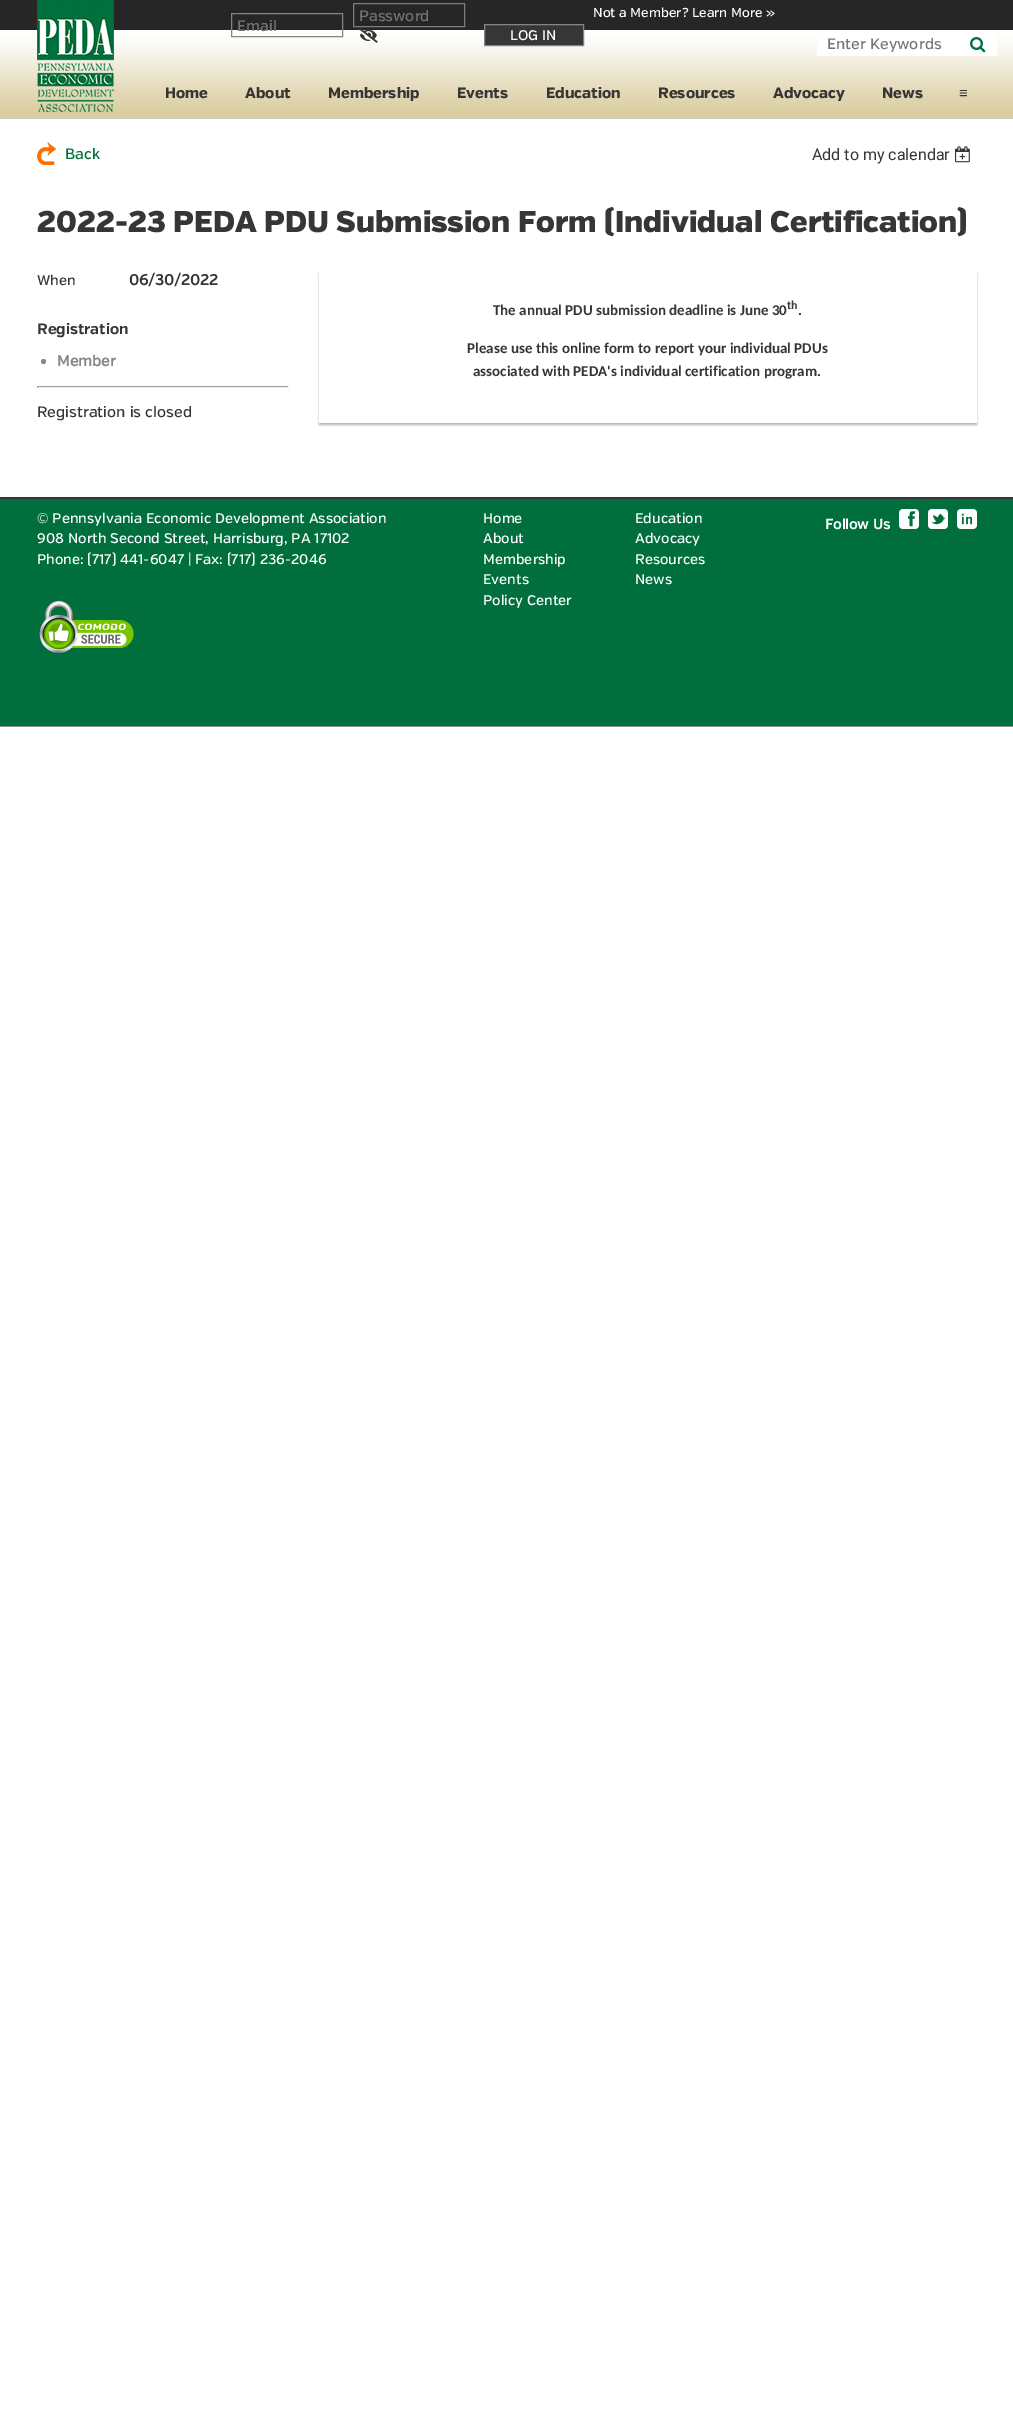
%!PS-Adobe-3.0
%%BoundingBox: 0 0 1013 2424
%%LanguageLevel: 3
%%Pages: 1
%%EndComments
%%BeginProlog
/setink { dup -16 bitshift 255 div exch dup -8 bitshift 255 and 255 div exch 255 and 255 div setrgbcolor } def
/usefont { [ exch dup neg 0 0 3 -1 roll 0 0 ] selectfont } def
/setalpha { dup .setfillconstantalpha .setstrokeconstantalpha } def
/disc { newpath 0 360 arc closepath } def
/rrect { 5 dict begin { /r /h /w /y /x } { exch def } forall
  x r add y moveto x w add y 2 copy h add r arct x w add y h add x 1 index r arct
  x y h add x y r arct x y 2 copy exch w add exch r arct closepath end } def
/softshadow { 12 dict begin { /a /b /q /h /w /y /x } { exch def } forall gsave /was 0 def
  9 -2 -9 { dup b mul 4 div /e exch def 1 sub .425 mul 2.718 exch exp 1 add a .99 .min exch div /now exch def
    1 1 now sub 1 was sub div sub setalpha /was now def
    w h .min e 2 mul add 0 gt { x e sub y e sub w e 2 mul add h e 2 mul add
      q e add b .6 mul add w h .min 2 div e add .min 0 .max rrect fill } if } for grestore end } def
/drawimage { 5 dict begin { /h /w /y /x /name } { exch def } forall
  gsave x y translate w h scale
  w h 8 [w 0 0 h 0 0] name (r) file false 3 colorimage grestore end } def
%%EndProlog
%%BeginSetup
<< /PageSize [1013 2424] /PageUsesTransparency true >> setpagedevice
%%EndSetup
%%Page: 1 1
0 .pushpdf14devicefilter
0 2424 translate 1 -1 scale
4 setmiterlimit
16#FFFFFF setink
0 0 1013 2424 rectfill
(img1.raw) 0 0 1013 119 drawimage
(img2.raw) 37 0 77 112 drawimage
16#7D7D7D setink
353.5 3.5 111 23 rectstroke
/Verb-Medium 15 usefont
16#757575 setink
359 21 moveto (Password) show
(img3.raw) 359 28 19 15 drawimage
16#848484 setink
231.5 13.5 111 23 rectstroke
16#757575 setink
237 31 moveto (Email) show
16#363636 setink
484.5 24.5 moveto 583.5 24.5 lineto 583.5 45.5 lineto 484.5 45.5 lineto closepath gsave fill grestore
16#848484 setink
stroke
/Verb-Medium 14 usefont
16#FFFFFF setink
510 40 moveto (LOG IN) show
/Verb-Medium 13 usefont
593 17 moveto (Not a Member? Learn More ») show
817 34 180 22 rectfill
/Verb-Medium 15 usefont
16#757575 setink
827 49 moveto (Enter Keywords) show
(img4.raw) 970 37 16 16 drawimage
/Verb-ExtraBold 15 usefont
16#363636 setink
[
    [(Home) 165 98]
    [(About) 245 98]
    [(Membership) 328 98]
    [(Events) 457 98]
    [(Education) 546 98]
    [(Resources) 658 98]
    [(Advocacy) 773 98]
    [(News) 882 98]
] { aload pop moveto show } forall
/LiberationSans-Regular 15 usefont
959 98 moveto (≡) show
(img5.raw) 37 142 19 23 drawimage
/Verb-Medium 15 usefont
16#006F3C setink
65 159 moveto (Back) show
/Roboto-Regular 16 usefont
16#363636 setink
812 160 moveto (Add to my calendar) show
(img6.raw) 955 146 15 17 drawimage
/Verb-Black 30 usefont
37 232 moveto (2022-23 PEDA PDU Submission Form \(Individual Certification\)) show
/Verb-Medium 14 usefont
37 285 moveto (When) show
/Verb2-Bold 15 usefont
129 285 moveto (06/30/2022) show
/Verb-Bold 15 usefont
37 334 moveto (Registration) show
16#888888 setink
43.5 361.5 2.5 disc fill
/Verb2-Bold 15 usefont
57 366 moveto (Member) show
[
    [37 386 252 1 16#9F9F9F]
    [288 386 1 2 16#EEEEEE]
    [37 387 252 1 16#EEEEEE]
    [37 386 1 2 16#9F9F9F]
] { aload pop setink rectfill } forall
/Verb-Medium 15 usefont
16#363636 setink
37 417 moveto (Registration is closed) show
gsave
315 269 moveto 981 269 lineto 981 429 lineto 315 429 lineto closepath 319 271 moveto 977 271 lineto 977 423 lineto 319 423 lineto closepath eoclip newpath
16#000000 setink
319 273 658 152 0 1 0.3 softshadow
grestore
/Carlito-Bold 15 usefont
493 315 moveto (The annual PDU submission deadline is June 30) show
/Carlito-Bold 12 usefont
787 309 moveto (th) show
/Carlito-Bold 15 usefont
[
    [(.) 798 315]
    [(Please use this online form to report your individual PDUs) 467 353]
    [(associated with PEDA's individual certification program.) 473 376]
] { aload pop moveto show } forall
16#006F3D setink
0 499 1013 227 rectfill
16#363636 setink
0 497 1013 2 rectfill
/Verb-Medium 14 usefont
16#FFFFFF setink
[
    [(© Pennsylvania Economic Development Association) 37 523]
    [(908 North Second Street, Harrisburg, PA 17102) 37 543]
    [(Phone: \(717\) 441-6047 | Fax: \(717\) 236-2046) 37 564]
] { aload pop moveto show } forall
(img7.raw) 39 600 95 53 drawimage
[
    [(Home) 483 523]
    [(About) 483 543]
    [(Membership) 483 564]
    [(Events) 483 584]
    [(Policy Center) 483 605]
    [(Education) 635 523]
    [(Advocacy) 635 543]
    [(Resources) 635 564]
    [(News) 635 584]
] { aload pop moveto show } forall
/Verb2-Bold 14 usefont
825 529 moveto (Follow Us) show
(img8.raw) 899 509 20 20 drawimage
(img9.raw) 928 509 20 20 drawimage
(img10.raw) 957 509 20 20 drawimage
16#8D8D8D setink
0 726 1013 1 rectfill
.poppdf14devicefilter showpage
%%EOF
